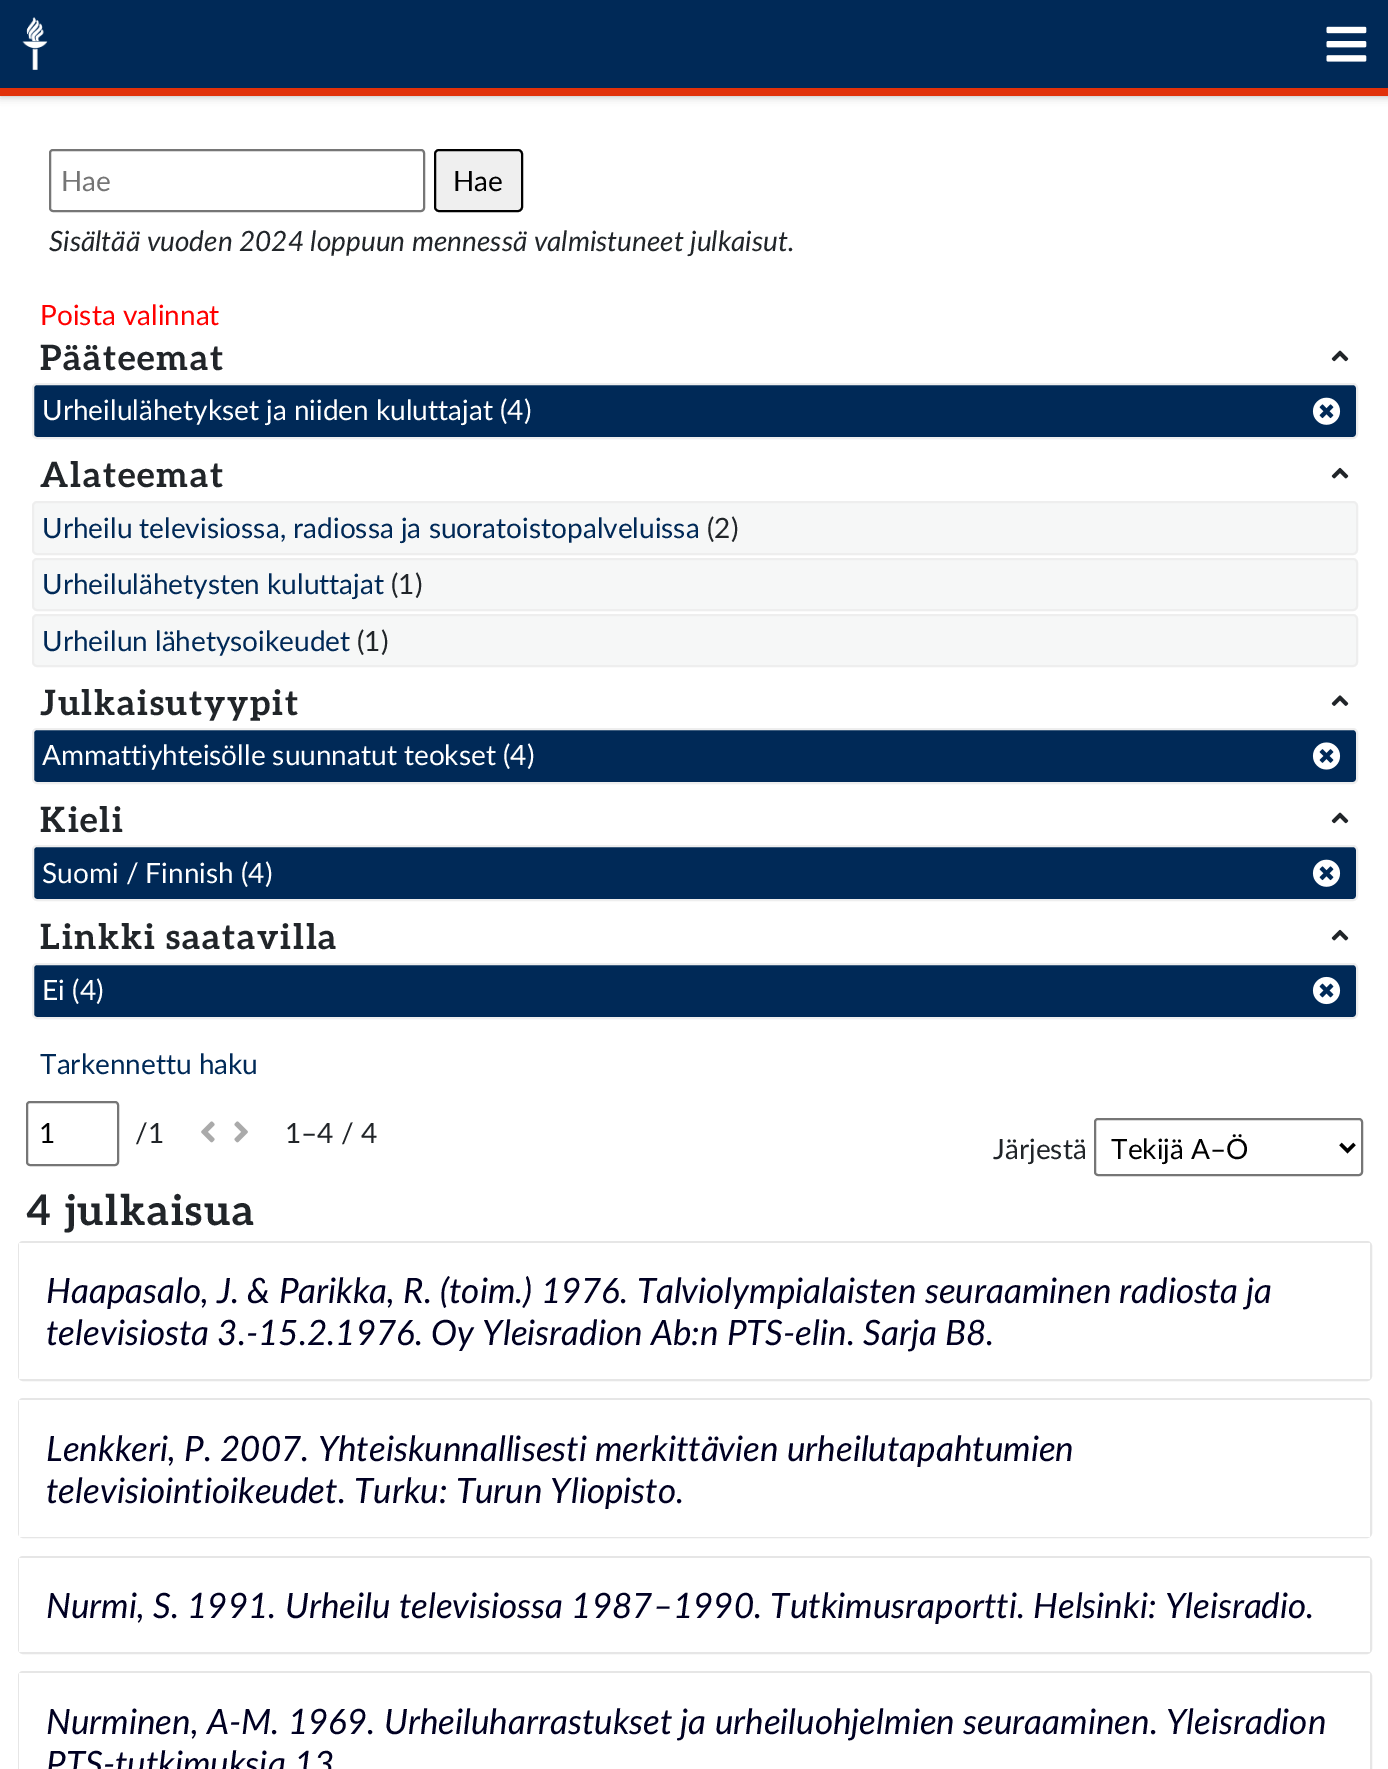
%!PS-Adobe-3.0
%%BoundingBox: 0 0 1388 1769
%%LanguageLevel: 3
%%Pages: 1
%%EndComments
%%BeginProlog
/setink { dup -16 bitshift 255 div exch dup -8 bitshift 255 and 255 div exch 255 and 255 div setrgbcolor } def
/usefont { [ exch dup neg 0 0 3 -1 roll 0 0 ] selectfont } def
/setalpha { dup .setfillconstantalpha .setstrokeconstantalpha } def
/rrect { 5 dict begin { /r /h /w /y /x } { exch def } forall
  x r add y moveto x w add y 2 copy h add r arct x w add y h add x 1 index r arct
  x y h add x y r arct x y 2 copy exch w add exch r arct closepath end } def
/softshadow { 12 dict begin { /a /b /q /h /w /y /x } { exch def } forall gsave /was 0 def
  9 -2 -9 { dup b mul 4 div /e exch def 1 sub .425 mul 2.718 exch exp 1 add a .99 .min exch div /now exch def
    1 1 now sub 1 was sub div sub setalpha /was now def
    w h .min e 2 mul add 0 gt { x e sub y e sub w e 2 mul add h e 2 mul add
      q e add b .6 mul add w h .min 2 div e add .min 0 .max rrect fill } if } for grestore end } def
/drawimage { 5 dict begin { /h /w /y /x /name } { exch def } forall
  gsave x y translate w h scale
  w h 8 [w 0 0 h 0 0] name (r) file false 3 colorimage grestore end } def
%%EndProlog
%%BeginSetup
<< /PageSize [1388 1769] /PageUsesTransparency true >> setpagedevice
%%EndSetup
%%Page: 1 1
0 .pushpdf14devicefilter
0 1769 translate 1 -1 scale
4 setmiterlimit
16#FFFFFF setink
0 0 1388 1769 rectfill
16#000000 setink
0 9 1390 87 0 4.5 0.3 softshadow
16#002957 setink
0 0 1388 88 rectfill
(img1.raw) 22 17 26 53 drawimage
(img2.raw) 1326 26 41 36 drawimage
16#E1310A setink
0 88 1388 8 rectfill
16#767676 setink
2 setlinewidth
50 150 374 61 3 rrect stroke
/Lato-Regular 28 usefont
16#757575 setink
61 191 moveto (Hae) show
16#EFEFEF setink
435 150 87 61 4 rrect gsave fill grestore
16#000000 setink
stroke
453 191 moveto (Hae) show
/Lato-Italic 28 usefont
16#212529 setink
49 251 moveto (Sisältää vuoden 2024 loppuun mennessä valmistuneet julkaisut.) show
/Lato-Regular 28 usefont
16#FF0000 setink
40 325 moveto (Poista valinnat) show
/Aleo-Bold 35 usefont
16#212529 setink
40 370 moveto 1.75 0 (Pääteemat) ashow
(img3.raw) 1331 350 18 12 drawimage
16#002957 setink
33 384 1324 54 4 rrect gsave fill grestore
16#EEEEEE setink
stroke
/Lato-Regular 28 usefont
16#FFFFFF setink
42 420 moveto (Urheilulähetykset ja niiden kuluttajat \(4\)) show
(img4.raw) 1312 397 29 28 drawimage
/Aleo-Bold 35 usefont
16#212529 setink
40 487 moveto 1.75 0 (Alateemat) ashow
(img5.raw) 1331 467 18 12 drawimage
16#F6F7F7 setink
33 502 1324 52 4 rrect gsave fill grestore
16#EEEEEE setink
stroke
/Lato-Regular 28 usefont
16#002957 setink
42 538 moveto (Urheilu televisiossa, radiossa ja suoratoistopalveluissa) show
16#212529 setink
707 538 moveto (\(2\)) show
16#F6F7F7 setink
33 559 1324 51 4 rrect gsave fill grestore
16#EEEEEE setink
stroke
16#002957 setink
42 594 moveto (Urheilulähetysten kuluttajat) show
16#212529 setink
391 594 moveto (\(1\)) show
16#F6F7F7 setink
33 615 1324 51 4 rrect gsave fill grestore
16#EEEEEE setink
stroke
16#002957 setink
42 651 moveto (Urheilun lähetysoikeudet) show
16#212529 setink
357 651 moveto (\(1\)) show
/Aleo-Bold 35 usefont
40 715 moveto 1.75 0 (Julkaisutyypit) ashow
(img6.raw) 1331 695 18 11 drawimage
16#002957 setink
33 729 1324 54 4 rrect gsave fill grestore
16#EEEEEE setink
stroke
/Lato-Regular 28 usefont
16#FFFFFF setink
42 765 moveto (Ammattiyhteisölle suunnatut teokset \(4\)) show
(img7.raw) 1312 742 29 28 drawimage
/Aleo-Bold 35 usefont
16#212529 setink
40 832 moveto 1.75 0 (Kieli) ashow
(img3.raw) 1331 812 18 12 drawimage
16#002957 setink
33 846 1324 54 4 rrect gsave fill grestore
16#EEEEEE setink
stroke
/Lato-Regular 28 usefont
16#FFFFFF setink
42 883 moveto (Suomi / Finnish \(4\)) show
(img4.raw) 1312 859 29 28 drawimage
/Aleo-Bold 35 usefont
16#212529 setink
40 949 moveto 1.75 0 (Linkki saatavilla) ashow
(img5.raw) 1331 929 18 12 drawimage
16#002957 setink
33 964 1324 54 4 rrect gsave fill grestore
16#EEEEEE setink
stroke
/Lato-Regular 28 usefont
16#FFFFFF setink
42 1000 moveto (Ei \(4\)) show
(img8.raw) 1312 976 29 29 drawimage
16#002957 setink
40 1074 moveto (Tarkennettu haku) show
16#767676 setink
27 1102 91 63 3 rrect stroke
16#000000 setink
39 1143 moveto (1) show
16#212529 setink
135 1143 moveto (/1) show
(img9.raw) 201 1121 14 22 drawimage
(img10.raw) 234 1121 14 22 drawimage
285 1143 moveto (1–4 / 4) show
993 1159 moveto (Järjestä) show
16#767676 setink
1095 1119 267 56 3 rrect stroke
16#000000 setink
3.5 setlinewidth
1340.5 1144 moveto 1347.5 1151 lineto 1354.5 1144 lineto stroke
1111 1159 moveto (Tekijä A–Ö) show
/Aleo-Bold 42 usefont
16#212529 setink
26 1225 moveto 1.75 0 (4 julkaisua) ashow
16#E6E6E6 setink
2 setlinewidth
19 1242 1352 138 4 rrect stroke
16#FFFFFF setink
19 1243 1351 136 rectfill
/Lato-Italic 35 usefont
16#000022 setink
46 1303 moveto (Haapasalo, J. & Parikka, R. \(toim.\) 1976. Talviolympialaisten seuraaminen radiosta ja) show
46 1345 moveto (televisiosta 3.-15.2.1976. Oy Yleisradion Ab:n PTS-elin. Sarja B8.) show
16#E6E6E6 setink
19 1399 1352 138 4 rrect stroke
16#FFFFFF setink
19 1400 1351 137 rectfill
16#000022 setink
46 1461 moveto (Lenkkeri, P. 2007. Yhteiskunnallisesti merkittävien urheilutapahtumien) show
46 1503 moveto (televisiointioikeudet. Turku: Turun Yliopisto.) show
16#E6E6E6 setink
19 1557 1352 96 4 rrect stroke
16#FFFFFF setink
19 1558 1351 94 rectfill
16#000022 setink
46 1618 moveto (Nurmi, S. 1991. Urheilu televisiossa 1987–1990. Tutkimusraportti. Helsinki: Yleisradio.) show
16#E6E6E6 setink
19 1672 1352 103 4 rrect stroke
16#FFFFFF setink
19 1673 1351 96 rectfill
16#000022 setink
46 1734 moveto (Nurminen, A-M. 1969. Urheiluharrastukset ja urheiluohjelmien seuraaminen. Yleisradion) show
46 1776 moveto (PTS-tutkimuksia 13) show
.poppdf14devicefilter showpage
%%EOF
